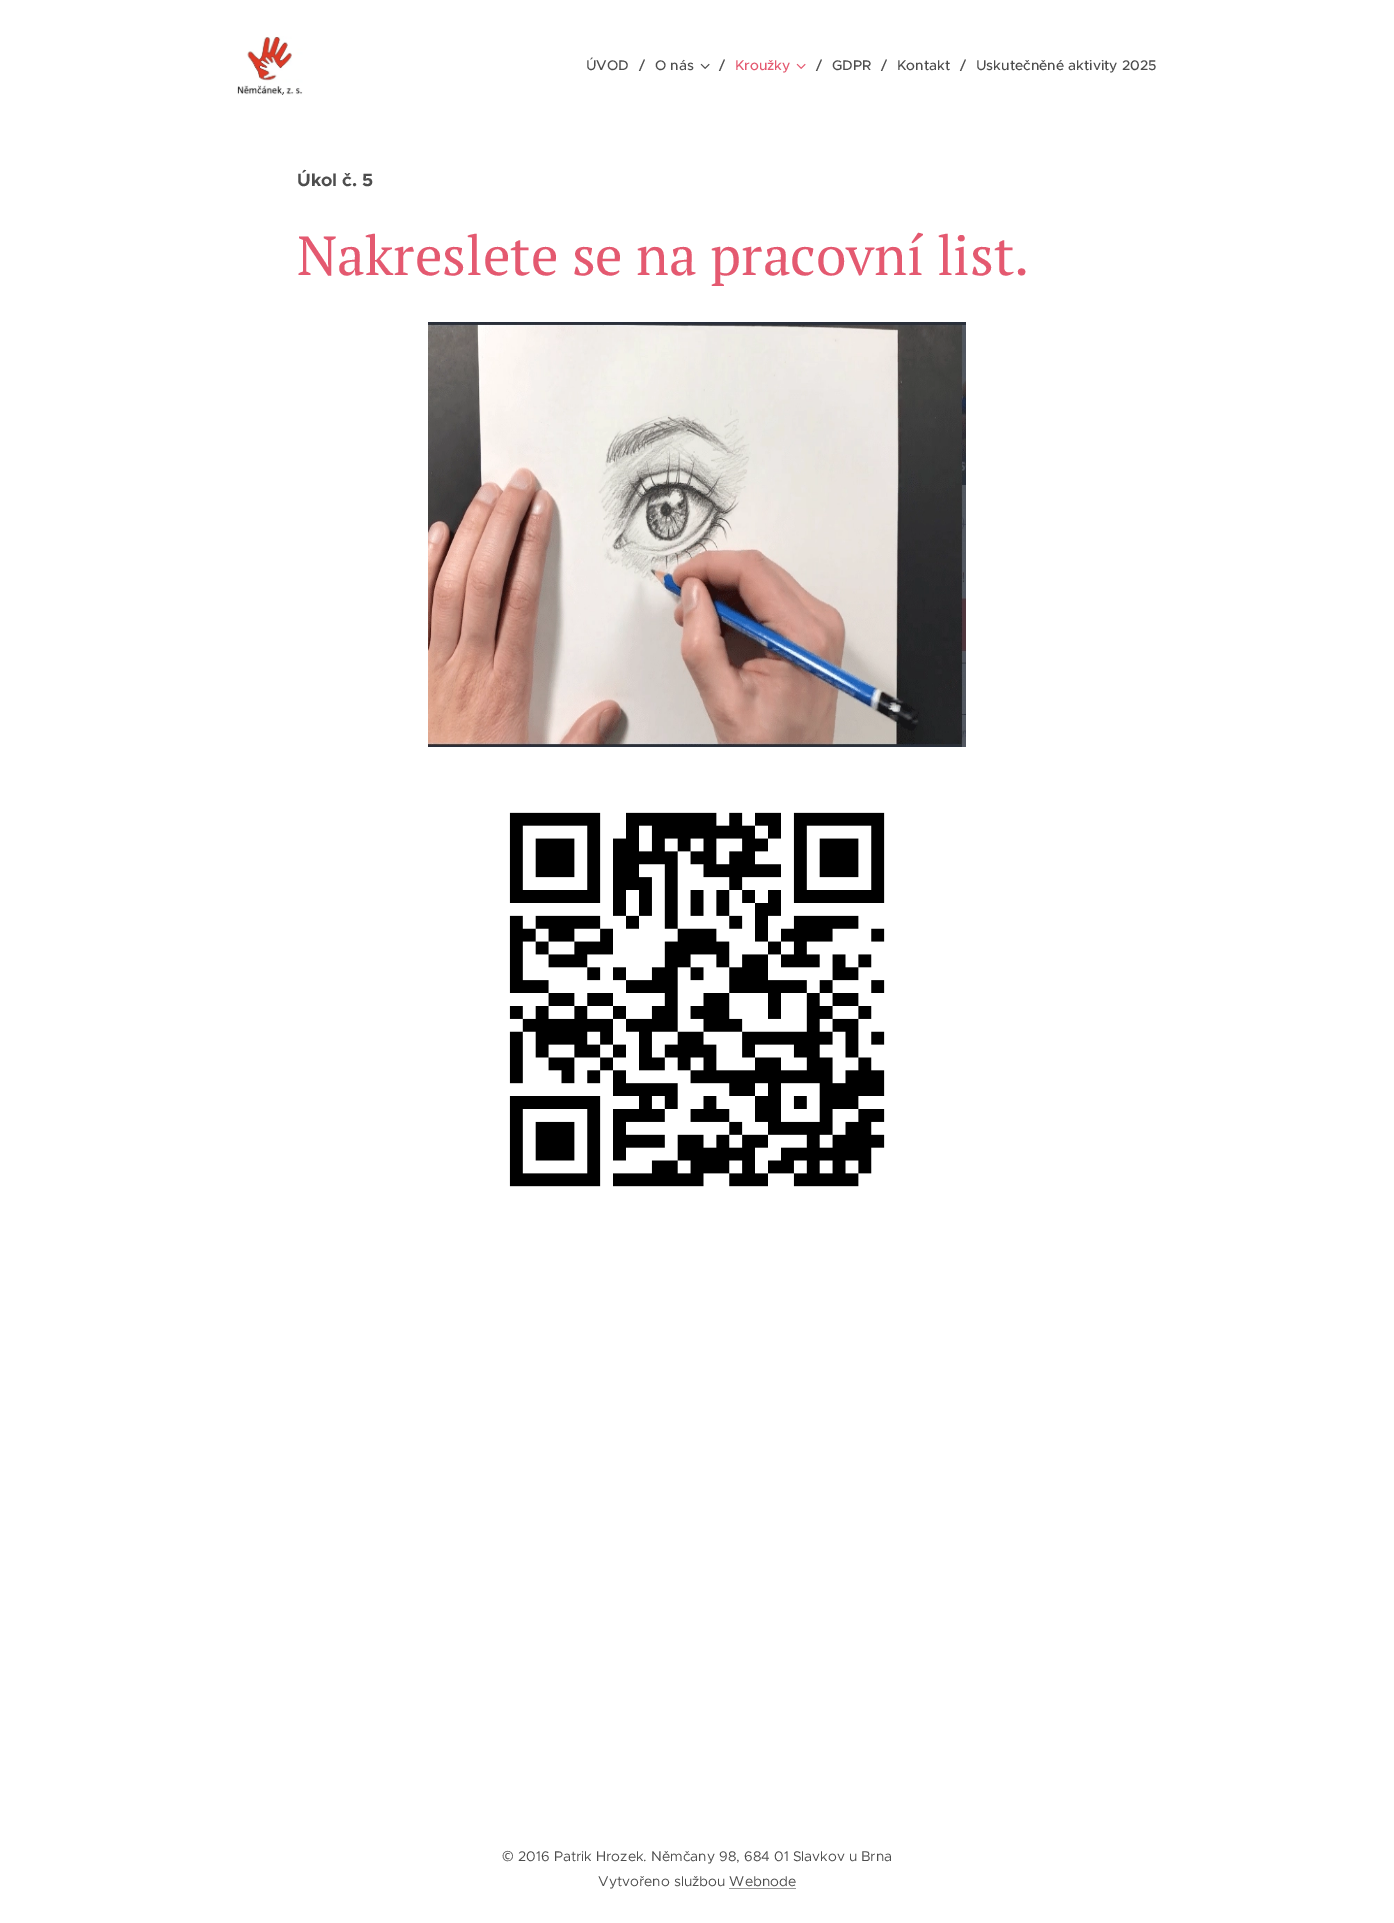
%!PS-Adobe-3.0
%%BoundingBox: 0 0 1394 1923
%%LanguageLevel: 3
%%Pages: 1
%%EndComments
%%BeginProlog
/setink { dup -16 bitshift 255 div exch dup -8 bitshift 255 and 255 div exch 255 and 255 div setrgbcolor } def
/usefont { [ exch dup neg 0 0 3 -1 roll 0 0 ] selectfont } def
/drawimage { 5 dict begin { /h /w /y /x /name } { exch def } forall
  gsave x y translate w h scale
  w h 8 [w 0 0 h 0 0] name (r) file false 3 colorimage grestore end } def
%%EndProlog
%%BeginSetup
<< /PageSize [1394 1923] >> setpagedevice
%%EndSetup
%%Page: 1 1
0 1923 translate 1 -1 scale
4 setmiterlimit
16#FFFFFF setink
0 0 1394 1923 rectfill
(img1.raw) 237 36 66 59 drawimage
/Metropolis-Medium 14 usefont
16#4D4D4D setink
[
    [(ÚVOD) 586 70]
    [(/) 639 70]
    [(O nás) 655 70]
    [(/) 719 70]
] { aload pop moveto show } forall
(img2.raw) 700 63 10 6 drawimage
16#E45970 setink
735 70 moveto (Kroužky) show
16#4D4D4D setink
816 70 moveto (/) show
(img3.raw) 796 63 10 6 drawimage
[
    [(GDPR) 832 70]
    [(/) 881 70]
    [(Kontakt) 897 70]
    [(/) 960 70]
    [(Uskutečněné aktivity 2025) 976 70]
] { aload pop moveto show } forall
/Metropolis-Bold 18 usefont
297 186 moveto (Úkol č. 5) show
/PTSerif-Regular 55 usefont
16#E45970 setink
297 275 moveto (Nakreslete se na pracovní list.) show
(img4.raw) 428 322 538 425 drawimage
(img5.raw) 509 812 376 375 drawimage
/NotoSans-Regular 14 usefont
16#4D4D4D setink
502 1861 moveto (©) show
/Metropolis-Regular 14 usefont
518 1861 moveto (2016 Patrik Hrozek. Němčany 98, 684 01 Slavkov u Brna) show
598 1886 moveto (Vytvořeno službou Webnode) show
16#999999 setink
729 1888 67 1 rectfill
showpage
%%EOF
